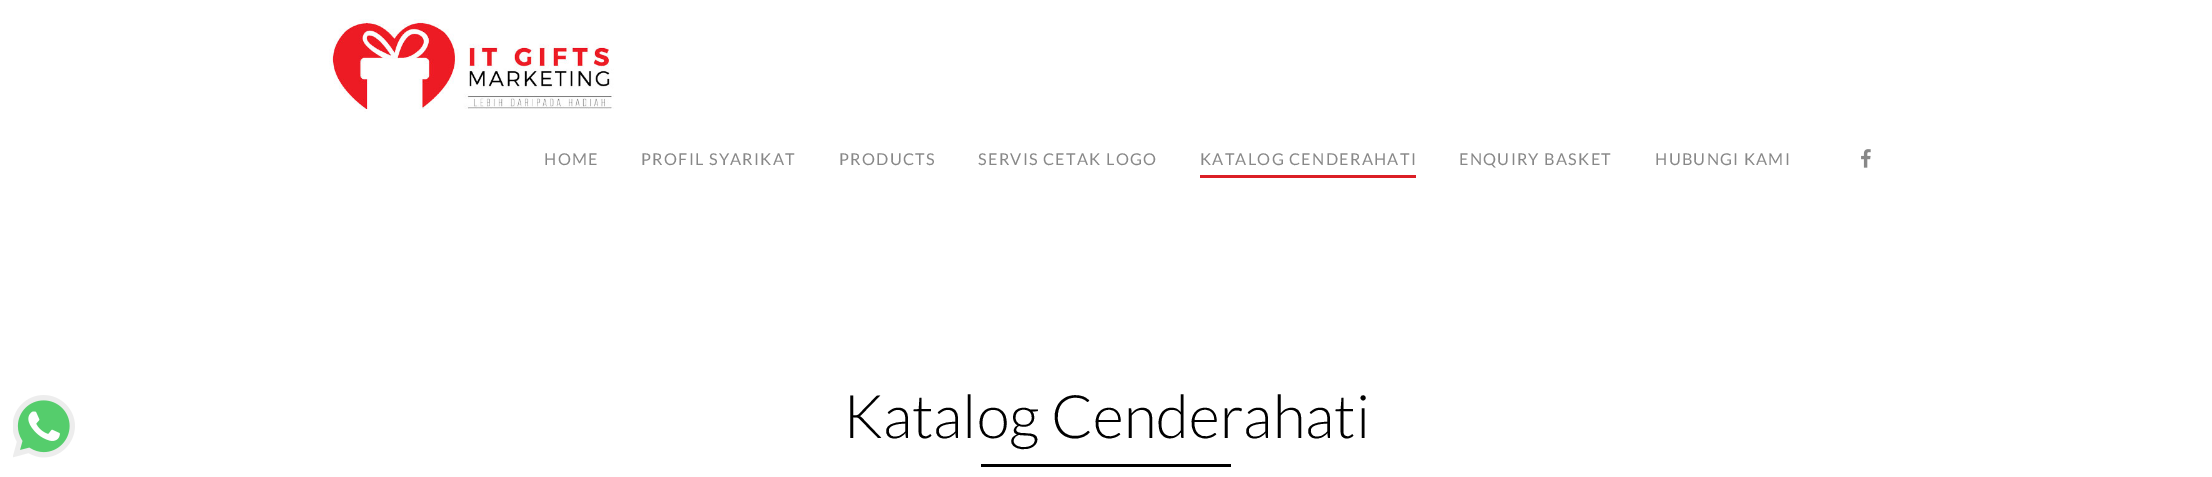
%!PS-Adobe-3.0
%%BoundingBox: 0 0 2212 477
%%LanguageLevel: 3
%%Pages: 1
%%EndComments
%%BeginProlog
/setink { dup -16 bitshift 255 div exch dup -8 bitshift 255 and 255 div exch 255 and 255 div setrgbcolor } def
/usefont { [ exch dup neg 0 0 3 -1 roll 0 0 ] selectfont } def
/drawimage { 5 dict begin { /h /w /y /x /name } { exch def } forall
  gsave x y translate w h scale
  w h 8 [w 0 0 h 0 0] name (r) file false 3 colorimage grestore end } def
%%EndProlog
%%BeginSetup
<< /PageSize [2212 477] >> setpagedevice
%%EndSetup
%%Page: 1 1
0 477 translate 1 -1 scale
4 setmiterlimit
16#FFFFFF setink
0 0 2212 477 rectfill
(img1.raw) 329 19 285 93 drawimage
/Lato-Regular 16.25 usefont
16#888888 setink
544 165 moveto 1.25 0 (HOME) ashow
641 165 moveto 1.25 0 (PROFIL SYARIKAT) ashow
839 165 moveto 1.25 0 (PRODUCTS) ashow
978 165 moveto 1.25 0 (SERVIS CETAK LOGO) ashow
1200 165 moveto 1.25 0 (KATALOG CENDERAHATI) ashow
16#DB1F26 setink
1200 175 216 3 rectfill
16#888888 setink
1459 165 moveto 1.25 0 (ENQUIRY BASKET) ashow
1655 165 moveto 1.25 0 (HUBUNGI KAMI) ashow
(img2.raw) 1861 149 10 19 drawimage
(img3.raw) 13 395 62 63 drawimage
/Lato-Light 60 usefont
16#000000 setink
843 438 moveto (Katalog Cenderahati) show
981 464 250 3 rectfill
showpage
%%EOF
